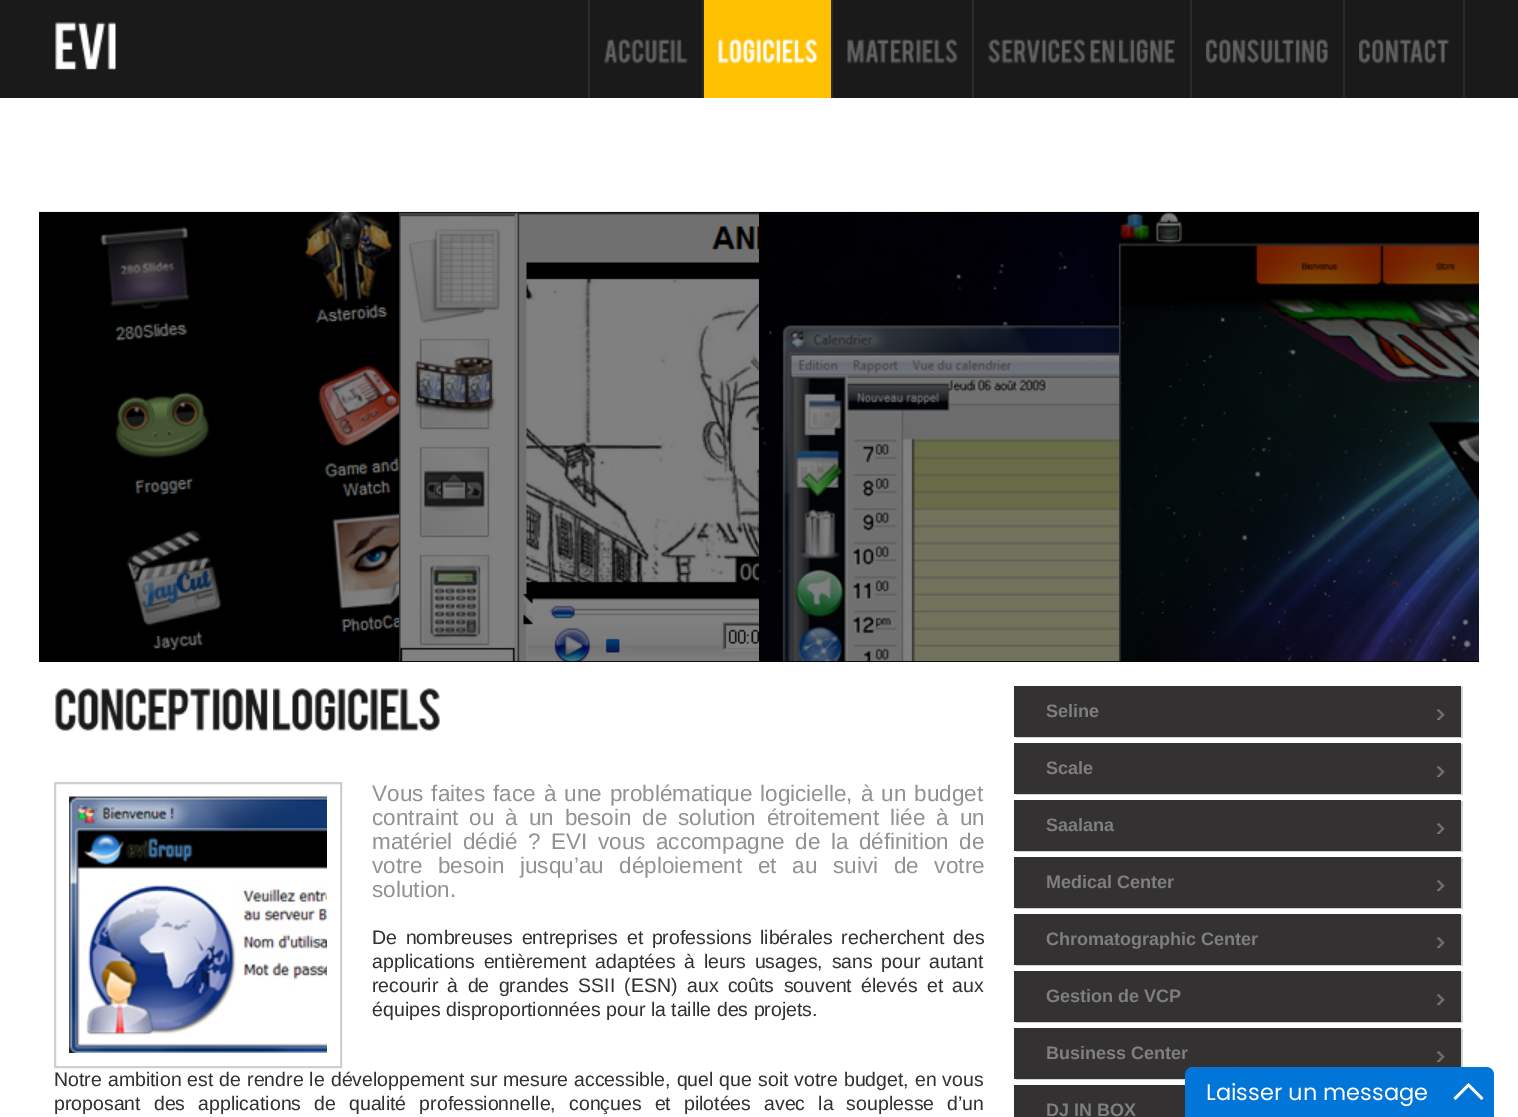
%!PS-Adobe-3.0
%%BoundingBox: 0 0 1518 1117
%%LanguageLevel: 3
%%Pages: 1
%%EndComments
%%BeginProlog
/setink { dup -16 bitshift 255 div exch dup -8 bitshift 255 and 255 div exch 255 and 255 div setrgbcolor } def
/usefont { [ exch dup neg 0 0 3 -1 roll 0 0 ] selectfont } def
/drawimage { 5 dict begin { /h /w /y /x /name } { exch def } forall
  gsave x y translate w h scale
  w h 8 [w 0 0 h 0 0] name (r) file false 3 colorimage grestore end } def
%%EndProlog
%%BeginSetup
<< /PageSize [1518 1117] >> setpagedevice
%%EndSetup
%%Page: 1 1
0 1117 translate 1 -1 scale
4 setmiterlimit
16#FFFFFF setink
0 0 1518 1117 rectfill
16#1A1A1A setink
0 0 1518 98 rectfill
(img1.raw) 55 22 61 48 drawimage
16#2B2B2B setink
702 0 2 98 rectfill
588 0 2 98 rectfill
(img2.raw) 604 39 84 25 drawimage
16#FFC000 setink
704 0 127 98 rectfill
16#2B2B2B setink
831 0 2 98 rectfill
(img3.raw) 718 38 100 26 drawimage
972 0 2 98 rectfill
(img4.raw) 847 39 111 25 drawimage
1190 0 2 98 rectfill
(img5.raw) 988 39 98 25 drawimage
(img6.raw) 1090 39 25 25 drawimage
(img7.raw) 1119 39 56 25 drawimage
1343 0 2 98 rectfill
(img8.raw) 1206 39 122 25 drawimage
1463 0 2 98 rectfill
(img9.raw) 1359 39 91 25 drawimage
16#000000 setink
39 212 1440 450 rectfill
(img10.raw) 39 211 360 440 drawimage
(img11.raw) 399 211 360 451 drawimage
(img12.raw) 759 211 360 451 drawimage
(img13.raw) 1119 211 360 451 drawimage
(img14.raw) 55 688 213 43 drawimage
(img15.raw) 273 688 167 43 drawimage
16#CFCFCF setink
2 setlinewidth
55 783 286 284 rectstroke
(img16.raw) 69 796 258 257 drawimage
/LiberationSans-Regular 22.5 usefont
16#929292 setink
372 801 moveto 1.75 0 32 (Vous faites face à une problématique logicielle, à un budget) widthshow
372 825 moveto 4.75 0 32 (contraint ou à un besoin de solution étroitement liée à un) widthshow
372 849 moveto 4.25 0 32 (matériel dédié ? EVI vous accompagne de la définition de) widthshow
372 873 moveto 9.5 0 32 (votre besoin jusqu’au déploiement et au suivi de votre) widthshow
372 897 moveto (solution.) show
/LiberationSans-Regular 19.5 usefont
16#313131 setink
372 944 moveto 3.25 0 32 (De nombreuses entreprises et professions libérales recherchent des) widthshow
372 968 moveto 3.25 0 32 (applications entièrement adaptées à leurs usages, sans pour autant) widthshow
372 992 moveto 3.9 0 32 (recourir à de grandes SSII \(ESN\) aux coûts souvent élevés et aux) widthshow
372 1016 moveto (équipes disproportionnées pour la taille des projets.) show
54 1086 moveto 0.6 0 32 (Notre ambition est de rendre le développement sur mesure accessible, quel que soit votre budget, en vous) widthshow
54 1110 moveto 7.6 0 32 (proposant des applications de qualité professionnelle, conçues et pilotées avec la souplesse d’un) widthshow
16#D1D1D1 setink
1016 736 moveto 1016 738 lineto 1463 738 lineto 1463 687 lineto 1461 687 lineto 1461 736 lineto closepath fill
16#333132 setink
1014 686 447 51 rectfill
(img17.raw) 1437 709 8 11 drawimage
/LiberationSans-Bold 18 usefont
16#7F7F7F setink
1046 717 moveto (Seline) show
16#D1D1D1 setink
1016 794 moveto 1016 795 lineto 1463 795 lineto 1463 744 lineto 1461 744 lineto 1461 794 lineto closepath fill
16#333132 setink
1014 743 447 51 rectfill
(img17.raw) 1437 766 8 11 drawimage
16#7F7F7F setink
1046 774 moveto (Scale) show
16#D1D1D1 setink
1016 850 moveto 1016 852 lineto 1463 852 lineto 1463 801 lineto 1461 801 lineto 1461 850 lineto closepath fill
16#333132 setink
1014 800 447 51 rectfill
(img17.raw) 1437 823 8 11 drawimage
16#7F7F7F setink
1046 831 moveto (Saalana) show
16#D1D1D1 setink
1016 908 moveto 1016 909 lineto 1463 909 lineto 1463 858 lineto 1461 858 lineto 1461 908 lineto closepath fill
16#333132 setink
1014 857 447 51 rectfill
(img17.raw) 1437 880 8 11 drawimage
16#7F7F7F setink
1046 888 moveto (Medical Center) show
16#D1D1D1 setink
1016 964 moveto 1016 966 lineto 1463 966 lineto 1463 915 lineto 1461 915 lineto 1461 964 lineto closepath fill
16#333132 setink
1014 914 447 51 rectfill
(img17.raw) 1437 937 8 11 drawimage
16#7F7F7F setink
1046 945 moveto (Chromatographic Center) show
16#D1D1D1 setink
1016 1022 moveto 1016 1023 lineto 1463 1023 lineto 1463 972 lineto 1461 972 lineto 1461 1022 lineto closepath fill
16#333132 setink
1014 971 447 51 rectfill
(img17.raw) 1437 994 8 11 drawimage
16#7F7F7F setink
1046 1002 moveto (Gestion de VCP) show
16#D1D1D1 setink
1016 1078 moveto 1016 1080 lineto 1463 1080 lineto 1463 1029 lineto 1461 1029 lineto 1461 1078 lineto closepath fill
16#333132 setink
1014 1028 447 51 rectfill
(img17.raw) 1437 1051 8 11 drawimage
16#7F7F7F setink
1046 1059 moveto (Business Center) show
16#333132 setink
1014 1085 171 32 rectfill
16#7F7F7F setink
1046 1116 moveto (DJ IN BOX) show
16#0275D8 setink
1193 1067 moveto 1486 1067 lineto 1490.5 1067 1494 1070.5 1494 1075 curveto 1494 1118 lineto 1185 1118 lineto 1185 1075 lineto 1185 1070.5 1188.5 1067 1193 1067 curveto closepath fill
/Poppins-Regular 22.5 usefont
16#FFFFFF setink
1206 1100 moveto (Laisser un message) show
1468.5 1083 moveto 1483.5 1098 lineto 1481.5 1100 lineto 1468.5 1087 lineto 1455.5 1100 lineto 1453.5 1098 lineto closepath fill
showpage
%%EOF
